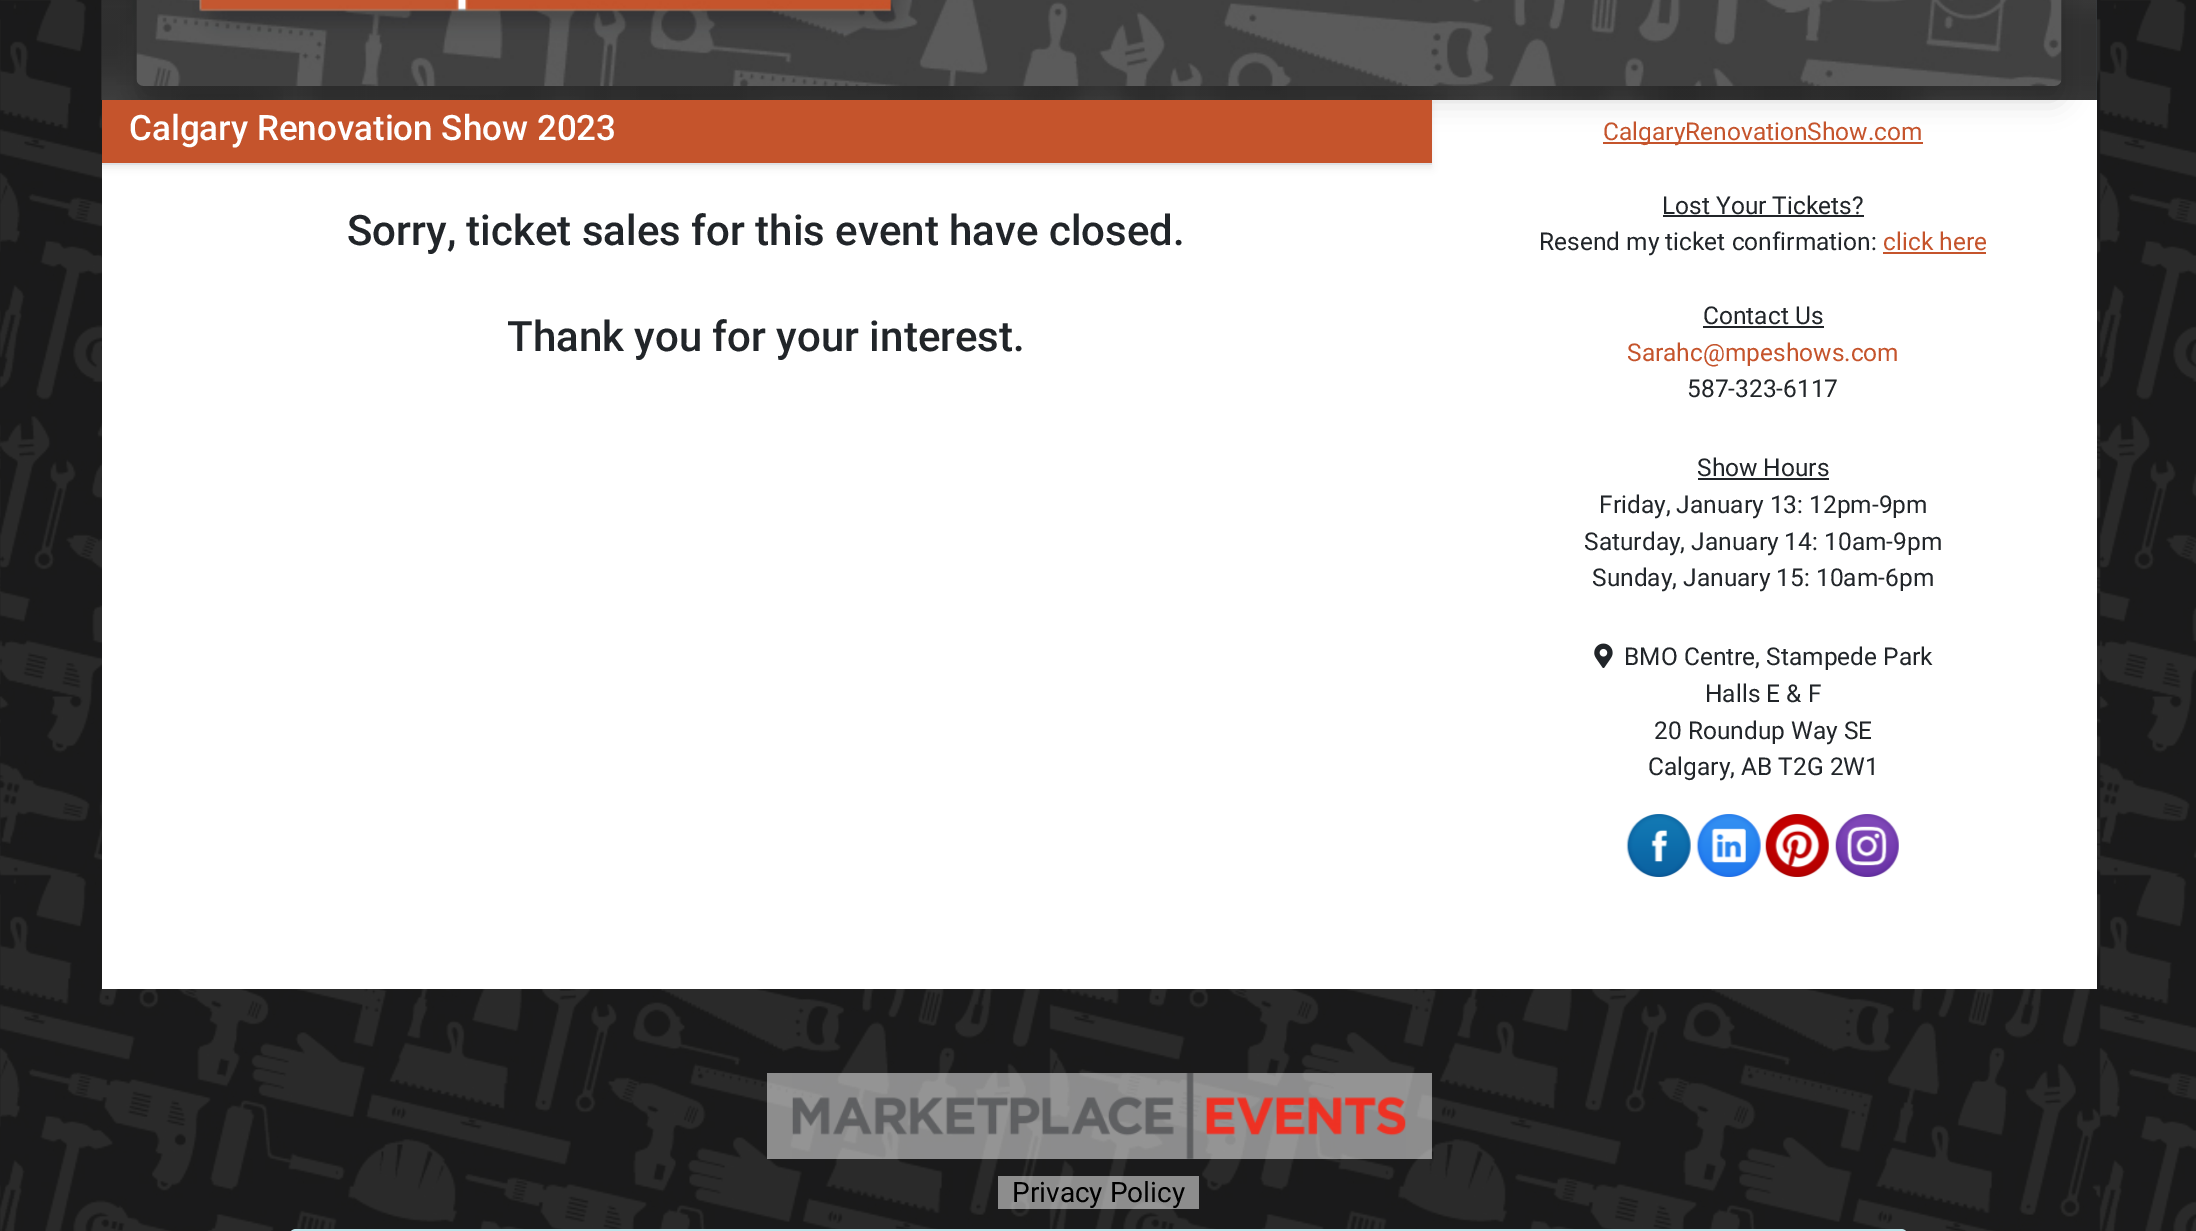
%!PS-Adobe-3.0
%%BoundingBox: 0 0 2196 1231
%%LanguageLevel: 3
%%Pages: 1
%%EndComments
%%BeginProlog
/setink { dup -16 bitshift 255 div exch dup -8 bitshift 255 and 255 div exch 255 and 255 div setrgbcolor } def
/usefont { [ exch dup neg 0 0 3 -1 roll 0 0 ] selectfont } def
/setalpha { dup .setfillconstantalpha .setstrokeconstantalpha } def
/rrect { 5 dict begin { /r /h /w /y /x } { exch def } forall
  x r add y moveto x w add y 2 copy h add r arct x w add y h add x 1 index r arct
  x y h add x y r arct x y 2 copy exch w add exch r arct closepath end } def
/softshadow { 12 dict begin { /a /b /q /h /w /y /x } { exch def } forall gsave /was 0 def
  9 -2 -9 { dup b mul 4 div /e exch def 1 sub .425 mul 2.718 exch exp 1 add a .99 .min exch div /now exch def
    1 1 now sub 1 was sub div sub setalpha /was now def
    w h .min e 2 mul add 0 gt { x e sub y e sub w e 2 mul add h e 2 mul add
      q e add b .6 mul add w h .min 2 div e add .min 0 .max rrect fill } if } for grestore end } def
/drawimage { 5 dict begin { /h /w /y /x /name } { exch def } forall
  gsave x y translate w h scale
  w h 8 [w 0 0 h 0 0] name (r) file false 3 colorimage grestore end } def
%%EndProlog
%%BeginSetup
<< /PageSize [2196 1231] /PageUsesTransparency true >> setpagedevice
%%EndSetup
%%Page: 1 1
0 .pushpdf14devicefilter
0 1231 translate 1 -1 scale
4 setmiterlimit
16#FFFFFF setink
0 0 2196 1231 rectfill
(img1.raw) 0 0 2196 1231 drawimage
16#343A40 setink
2096 0 1 100 rectfill
(img2.raw) 101 0 1996 100 drawimage
16#FFFFFF setink
102 100 1995 889 rectfill
16#000000 setink
137 -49 1925 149 7 14 0.15 softshadow
(img3.raw) 136 0 1926 86 drawimage
102 103 1330 65 0 3.5 0.07 softshadow
16#C5542C setink
102 100 1330 63 rectfill
16#DEE2E6 setink
102 163 1330 2 rectfill
/Roboto-Medium 35 usefont
16#FFFFFF setink
129 140 moveto (Calgary Renovation Show 2023) show
/Roboto-Medium 42 usefont
16#212529 setink
347 245 moveto (Sorry, ticket sales for this event have closed.) show
507 351 moveto (Thank you for your interest.) show
16#C5542C setink
1603 142 320 2 rectfill
/Roboto-Regular 24.5 usefont
1603 140 moveto (CalgaryRenovationShow.com) show
16#212529 setink
1662 214 moveto (Lost Your Tickets?) show
1663 215 201 2 rectfill
1539 250 moveto (Resend my ticket confirmation:) show
16#C5542C setink
1883 250 moveto (click here) show
1883 252 103 2 rectfill
16#212529 setink
1703 324 moveto (Contact Us) show
1703 326 121 2 rectfill
16#C5542C setink
1627 361 moveto (Sarahc@mpeshows.com) show
16#212529 setink
1687 397 moveto (587-323-6117) show
1697 476 moveto (Show Hours) show
1698 478 131 2 rectfill
[
    [(Friday, January 13: 12pm-9pm) 1599 513]
    [(Saturday, January 14: 10am-9pm) 1584 550]
    [(Sunday, January 15: 10am-6pm) 1592 586]
] { aload pop moveto show } forall
(img4.raw) 1594 643 19 25 drawimage
[
    [(BMO Centre, Stampede Park) 1624 665]
    [(Halls E & F) 1705 702]
    [(20 Roundup Way SE) 1654 739]
    [(Calgary, AB T2G 2W1) 1648 775]
] { aload pop moveto show } forall
(img5.raw) 1626 814 65 63 drawimage
(img6.raw) 1696 814 65 63 drawimage
(img7.raw) 1765 814 64 63 drawimage
(img8.raw) 1835 814 64 63 drawimage
0.5 setalpha
16#FFFFFF setink
767 1073 665 86 rectfill
1 setalpha
(img9.raw) 792 1073 614 86 drawimage
0.5 setalpha
998 1176 201 33 rectfill
/Roboto-Regular 28 usefont
1 setalpha
16#000000 setink
1012 1202 moveto (Privacy Policy) show
16#BEE5EB setink
2 setlinewidth
290 1230 1617 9 6 rrect stroke
.poppdf14devicefilter showpage
%%EOF
